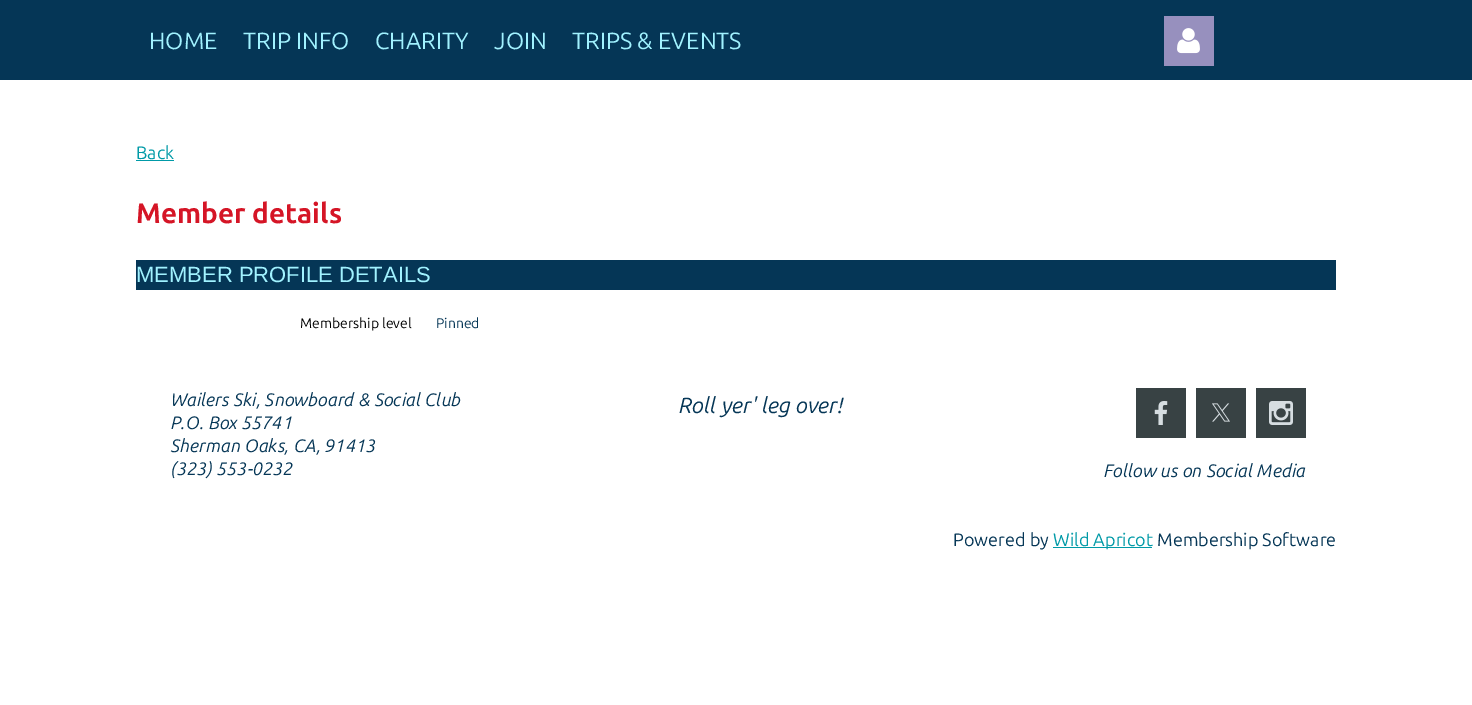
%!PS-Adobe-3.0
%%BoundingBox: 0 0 1472 705
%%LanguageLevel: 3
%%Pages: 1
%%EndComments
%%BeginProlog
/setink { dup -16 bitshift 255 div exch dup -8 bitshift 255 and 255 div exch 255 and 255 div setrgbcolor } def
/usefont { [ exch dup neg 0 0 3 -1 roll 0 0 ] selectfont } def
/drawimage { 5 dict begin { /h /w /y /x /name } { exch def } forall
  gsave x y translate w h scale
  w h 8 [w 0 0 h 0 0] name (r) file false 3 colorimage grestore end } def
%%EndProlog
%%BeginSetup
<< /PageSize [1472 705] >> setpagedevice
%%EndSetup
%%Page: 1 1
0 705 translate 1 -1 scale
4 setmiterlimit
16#FFFFFF setink
0 0 1472 705 rectfill
16#053656 setink
0 0 1472 80 rectfill
/Ubuntu-Regular 23.5 usefont
16#A1F2FF setink
[
    [(HOME) 149 49]
    [(TRIP INFO) 243 49]
    [(CHARITY) 375 49]
    [(JOIN) 494 49]
    [(TRIPS & EVENTS) 572 49]
] { aload pop moveto show } forall
16#9790BE setink
1164 16 50 50 rectfill
(img1.raw) 1177 28 23 26 drawimage
/Ubuntu-Regular 18 usefont
16#009AA7 setink
136 159 moveto (Back) show
136 160 38 1 rectfill
/Ubuntu-Bold 28 usefont
16#D51526 setink
136 223 moveto (Member details) show
16#053656 setink
136 260 1200 30 rectfill
/LiberationSans-Regular 22 usefont
16#A1F2FF setink
136 282 moveto (MEMBER PROFILE DETAILS) show
/Ubuntu-Regular 14 usefont
16#000000 setink
300 328 moveto (Membership level) show
16#053656 setink
436 328 moveto (Pinned) show
/Ubuntu-Italic 18 usefont
[
    [(Wailers Ski, Snowboard & Social Club) 171 406]
    [(P.O. Box 55741) 171 429]
    [(Sherman Oaks, CA, 91413) 171 452]
    [(\(323\) 553-0232) 171 475]
] { aload pop moveto show } forall
/Ubuntu-Italic 22 usefont
679 413 moveto (Roll yer' leg over!) show
16#384244 setink
1136 388 50 50 rectfill
(img2.raw) 1154 401 14 24 drawimage
1196 388 50 50 rectfill
(img3.raw) 1212 403 18 19 drawimage
1256 388 50 50 rectfill
(img4.raw) 1269 401 24 24 drawimage
/Ubuntu-Italic 18 usefont
16#053656 setink
1104 477 moveto (Follow us on Social Media) show
/Ubuntu-Regular 18 usefont
953 546 moveto (Powered by) show
16#009AA7 setink
1053 547 99 1 rectfill
1053 546 moveto (Wild Apricot) show
16#053656 setink
1157 546 moveto (Membership Software) show
showpage
%%EOF
